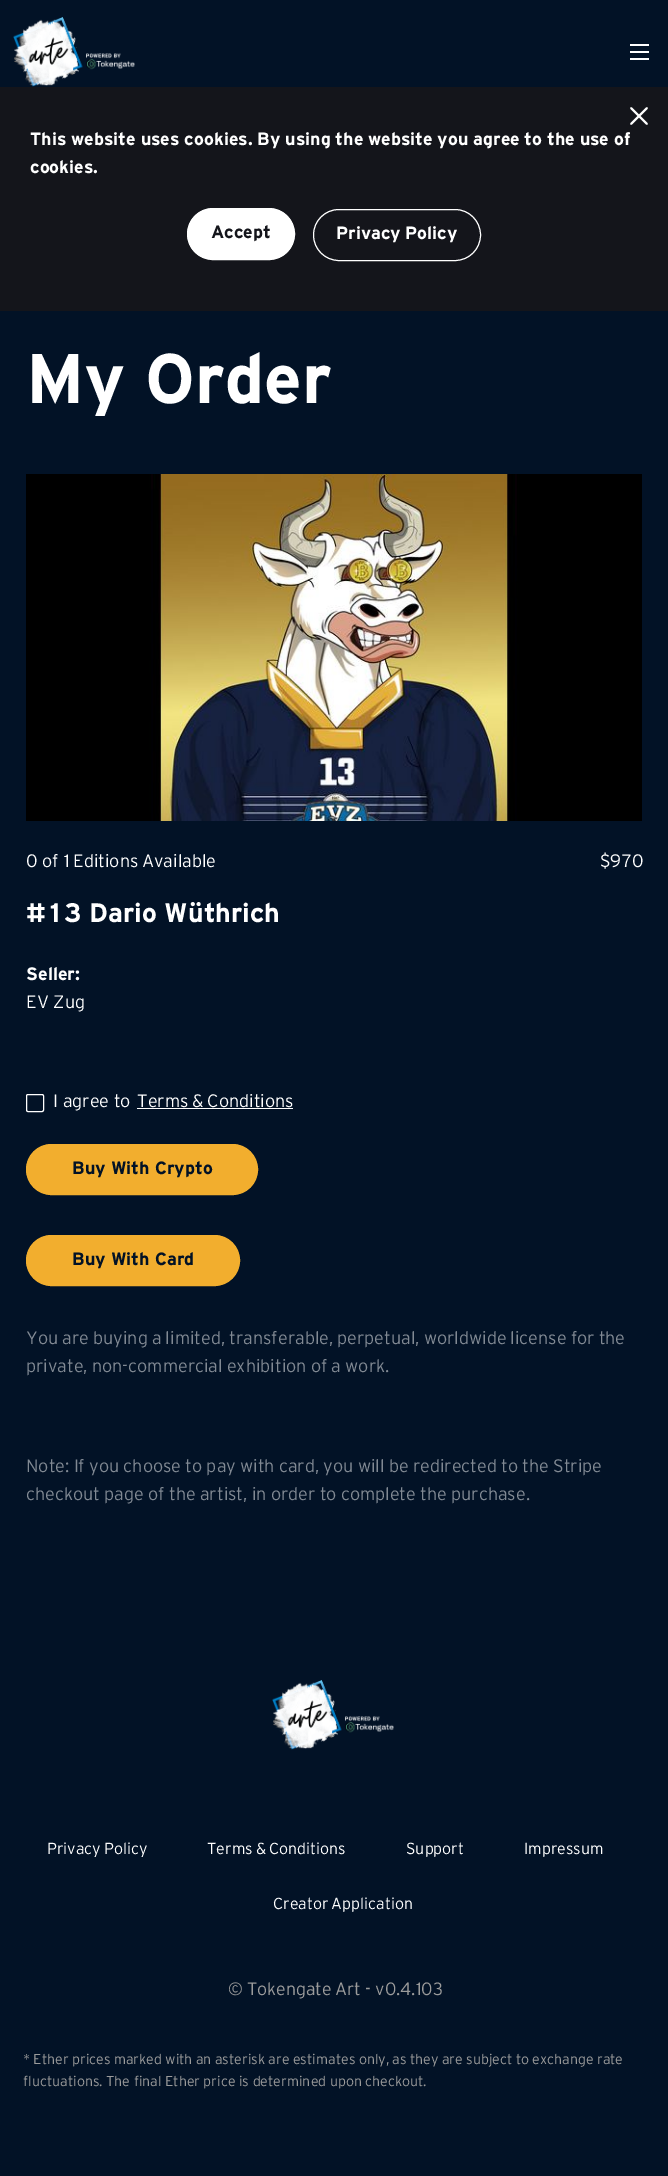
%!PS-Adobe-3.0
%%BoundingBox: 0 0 668 2176
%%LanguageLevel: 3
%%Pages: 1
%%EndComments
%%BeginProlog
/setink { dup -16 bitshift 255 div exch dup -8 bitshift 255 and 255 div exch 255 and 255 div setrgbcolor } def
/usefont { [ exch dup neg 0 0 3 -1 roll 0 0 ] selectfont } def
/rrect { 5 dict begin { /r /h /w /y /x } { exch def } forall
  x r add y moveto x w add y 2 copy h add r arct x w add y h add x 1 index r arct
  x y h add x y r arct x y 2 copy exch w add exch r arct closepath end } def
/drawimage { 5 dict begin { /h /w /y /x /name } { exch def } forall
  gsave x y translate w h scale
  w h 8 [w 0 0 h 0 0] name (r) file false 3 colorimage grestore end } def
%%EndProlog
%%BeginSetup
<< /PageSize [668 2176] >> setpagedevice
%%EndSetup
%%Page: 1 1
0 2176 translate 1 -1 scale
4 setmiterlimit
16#021226 setink
0 0 668 2176 rectfill
16#14151B setink
0 87 668 224 rectfill
(img1.raw) 13 17 122 70 drawimage
[
    [630 44 19 2 16#FFFFFF]
    [630 51 19 2 16#FFFFFF]
    [630 58 19 2 16#FFFFFF]
] { aload pop setink rectfill } forall
1.8 setlinewidth
1 setlinecap
1 setlinejoin
631 108 moveto 647 124 lineto 631 124 moveto 647 108 lineto stroke
/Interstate-Bold 17.8 usefont
30 145 moveto -0.4 0 32 (This website uses cookies. By using the website you agree to the use of) widthshow
30 173 moveto (cookies.) show
187.5 208.5 107 51 25.5 rrect gsave fill grestore
1 setlinewidth
0 setlinecap
0 setlinejoin
stroke
16#14151B setink
211 238 moveto (Accept) show
16#FFFFFF setink
313.5 209.5 167 51 25.5 rrect stroke
336 239 moveto -1 0 32 (Privacy Policy) widthshow
(img2.raw) 26 292 12 9 drawimage
/Interstate-Bold 70 usefont
26 403 moveto -1 0 32 (My Order) widthshow
(img3.raw) 26 474 616 347 drawimage
/Interstate-Light 18 usefont
26 867 moveto (0 of 1) show
73 867 moveto -1 0 32 (Editions Available) widthshow
600 867 moveto ($970) show
/Interstate-Bold 26.75 usefont
26 922 moveto (#13 Dario Wüthrich) show
/Interstate-Bold 18 usefont
26 980 moveto (Seller:) show
/Interstate-Light 18 usefont
26 1008 moveto (EV Zug) show
26.5 1094.5 17 17 1.5 rrect stroke
53 1107 moveto (I agree to) show
137 1107 moveto -1 0 32 (Terms & Conditions) widthshow
137 1108 156 1 rectfill
16#F2AE2E setink
26.5 1144.5 231 50 25 rrect gsave fill grestore
stroke
/Interstate-Bold 17.8 usefont
16#021226 setink
72 1174 moveto (Buy With Crypto) show
16#F2AE2E setink
26.5 1235.5 213 50 25 rrect gsave fill grestore
stroke
16#021226 setink
72 1265 moveto (Buy With Card) show
/Interstate-Light 18 usefont
16#818993 setink
26 1344 moveto -0.6 0 32 (You are buying a limited, transferable, perpetual, worldwide license for the) widthshow
26 1372 moveto -0.5 0 32 (private, non-commercial exhibition of a work.) widthshow
26 1472 moveto -0.4 0 32 (Note: If you choose to pay with card, you will be redirected to the Stripe) widthshow
26 1500 moveto -0.4 0 32 (checkout page of the artist, in order to complete the purchase.) widthshow
(img4.raw) 272 1680 122 70 drawimage
/Interstate-Light 16 usefont
16#FFFFFF setink
47 1854 moveto -1 0 32 (Privacy Policy) widthshow
207 1854 moveto -1 0 32 (Terms & Conditions) widthshow
406 1854 moveto (Support) show
524 1854 moveto (Impressum) show
273 1909 moveto -1 0 32 (Creator Application) widthshow
/Interstate-Light 17.8 usefont
16#9B9B9B setink
228 1995 moveto -1 0 32 (© Tokengate Art) widthshow
365 1995 moveto (- v0.4.103) show
/Interstate-Light 14.2 usefont
23 2064 moveto -0.4 0 32 (* Ether prices marked with an asterisk are estimates only, as they are subject to exchange rate) widthshow
23 2086 moveto -0.25 0 32 (fluctuations. The final Ether price is determined upon checkout.) widthshow
showpage
%%EOF
